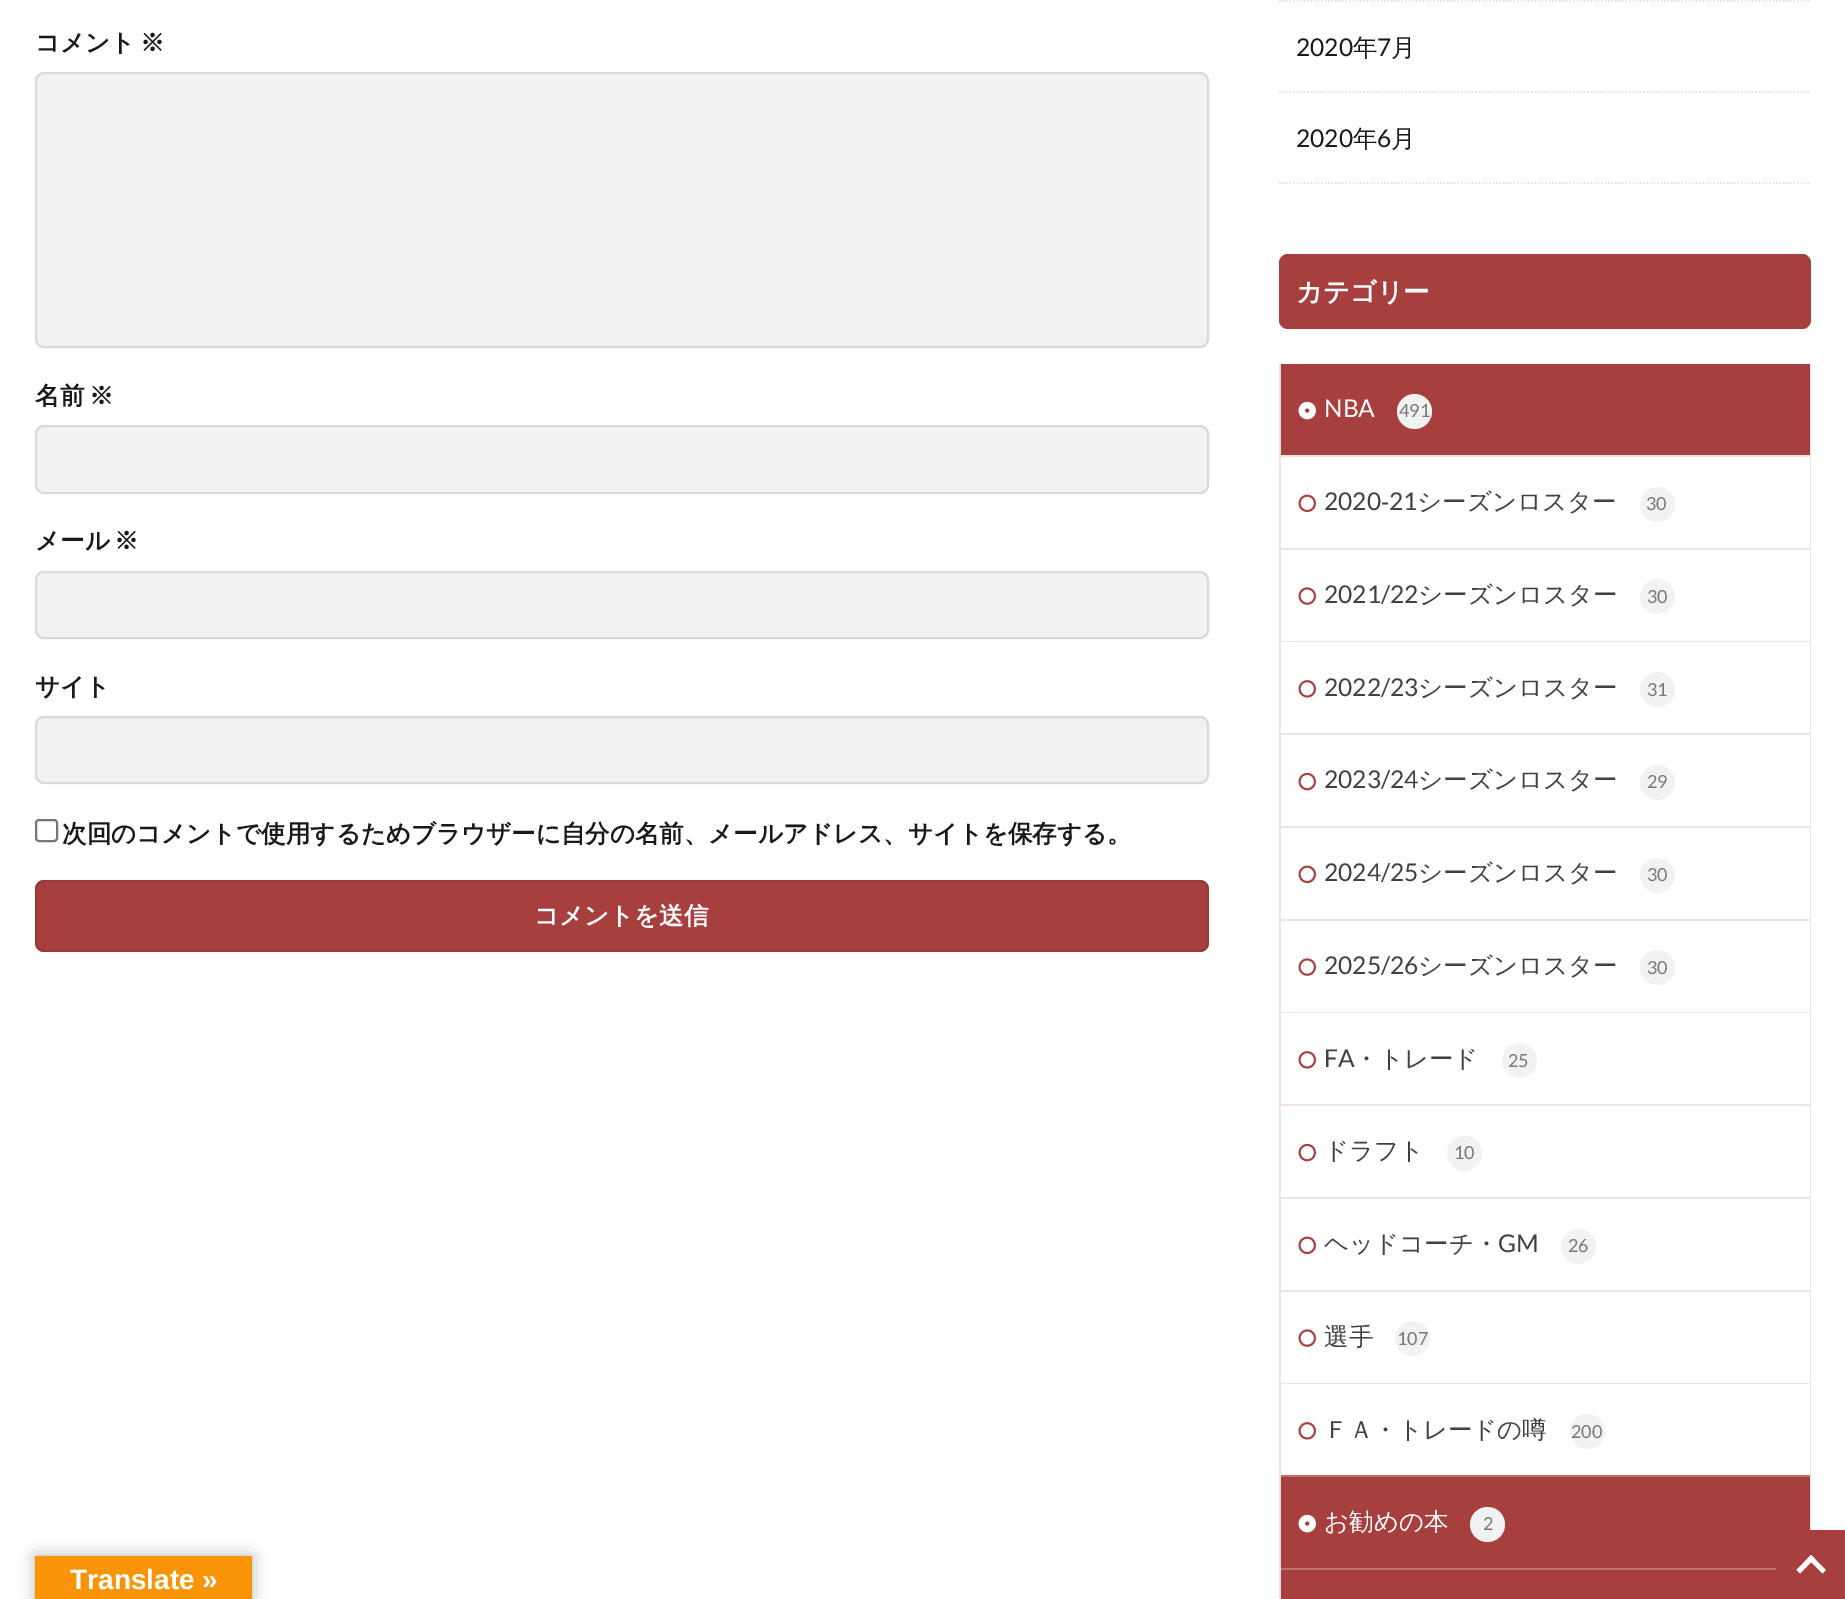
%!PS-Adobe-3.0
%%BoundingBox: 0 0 1845 1599
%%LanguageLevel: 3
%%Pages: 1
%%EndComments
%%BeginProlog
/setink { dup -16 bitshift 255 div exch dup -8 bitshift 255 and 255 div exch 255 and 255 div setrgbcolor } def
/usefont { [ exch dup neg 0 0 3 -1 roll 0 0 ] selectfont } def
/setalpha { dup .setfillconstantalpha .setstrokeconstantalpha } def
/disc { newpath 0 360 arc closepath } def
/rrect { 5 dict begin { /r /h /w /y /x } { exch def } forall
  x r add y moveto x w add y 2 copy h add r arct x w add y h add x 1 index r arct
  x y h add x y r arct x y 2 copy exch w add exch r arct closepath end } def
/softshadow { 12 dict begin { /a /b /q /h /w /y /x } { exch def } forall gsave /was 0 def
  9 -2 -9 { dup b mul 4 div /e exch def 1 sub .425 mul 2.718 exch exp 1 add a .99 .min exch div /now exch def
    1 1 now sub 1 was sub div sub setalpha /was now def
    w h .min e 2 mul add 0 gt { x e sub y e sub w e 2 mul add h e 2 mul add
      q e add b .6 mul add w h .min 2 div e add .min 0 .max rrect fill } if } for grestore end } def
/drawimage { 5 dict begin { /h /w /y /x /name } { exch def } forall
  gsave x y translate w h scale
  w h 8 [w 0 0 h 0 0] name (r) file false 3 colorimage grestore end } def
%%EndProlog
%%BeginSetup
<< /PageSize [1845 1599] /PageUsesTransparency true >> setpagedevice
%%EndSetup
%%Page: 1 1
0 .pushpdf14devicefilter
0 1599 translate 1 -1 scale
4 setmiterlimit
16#FFFFFF setink
0 0 1845 1599 rectfill
/WenQuanYiZenHei-Bold 24.5 usefont
16#191919 setink
35 51 moveto (コメント) show
140 51 moveto (※) show
16#F2F2F2 setink
35 72 1174 276 9 rrect fill
0.1 setalpha
16#000000 setink
2 setlinewidth
36 73 1172 274 8 rrect stroke
1 setalpha
16#191919 setink
35 404 moveto (名前) show
89 404 moveto (※) show
16#F2F2F2 setink
35 425 1174 69 9 rrect fill
0.1 setalpha
16#000000 setink
36 426 1172 67 8 rrect stroke
1 setalpha
16#191919 setink
35 549 moveto (メール) show
114 549 moveto (※) show
16#F2F2F2 setink
35 571 1174 68 9 rrect fill
0.1 setalpha
16#000000 setink
36 572 1172 66 8 rrect stroke
1 setalpha
16#191919 setink
35 695 moveto (サイト) show
16#F2F2F2 setink
35 716 1174 68 9 rrect fill
0.1 setalpha
16#000000 setink
36 717 1172 66 8 rrect stroke
1 setalpha
16#767676 setink
36 820 21 21 3 rrect stroke
16#191919 setink
62 842 moveto (次回のコメントで使用するためブラウザーに自分の名前、メールアドレス、サイトを保存する。) show
16#A83F3F setink
35 880 1174 72 9 rrect fill
0.1 setalpha
16#000000 setink
36 881 1172 70 8 rrect stroke
1 setalpha
16#FFFFFF setink
534 924 moveto (コメントを送信) show
16#E6E6E6 setink
1.8 setlinewidth
[1.75 1.75] 0 setdash
1279 1 moveto 1811 1 lineto stroke
1279 92 moveto 1811 92 lineto stroke
/Lato-Regular 24.5 usefont
16#191919 setink
1296 56 moveto (2020) show
/WenQuanYiZenHei-Medium 24.5 usefont
1353 56 moveto (年) show
/Lato-Regular 24.5 usefont
1377 56 moveto (7) show
/WenQuanYiZenHei-Medium 24.5 usefont
1391 56 moveto (月) show
16#E6E6E6 setink
1279 183 moveto 1811 183 lineto stroke
/Lato-Regular 24.5 usefont
16#191919 setink
1296 147 moveto (2020) show
/WenQuanYiZenHei-Medium 24.5 usefont
1353 147 moveto (年) show
/Lato-Regular 24.5 usefont
1377 147 moveto (6) show
/WenQuanYiZenHei-Medium 24.5 usefont
1391 147 moveto (月) show
16#A83F3F setink
1279 254 532 75 9 rrect fill
/WenQuanYiZenHei-Bold 26.25 usefont
16#FFFFFF setink
1296 301 moveto (カテゴリー) show
16#F2E2E2 setink
1811 364 moveto 1811 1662 lineto 1810 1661 lineto 1810 364 lineto closepath fill
1279 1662 moveto 1279 364 lineto 1281 364 lineto 1281 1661 lineto closepath fill
16#A83F3F setink
1281 364 529 91 rectfill
(img1.raw) 1298 401 18 19 drawimage
/Lato-Regular 24.5 usefont
16#FFFFFF setink
1324 417 moveto (NBA) show
16#F2F2F2 setink
1414.5 411.5 17.5 disc fill
/Lato-Regular 18 usefont
16#797979 setink
1399 417 moveto (491) show
16#F2E2E2 setink
1281 455 529 2 rectfill
(img2.raw) 1298 494 18 19 drawimage
/Lato-Regular 24.5 usefont
16#404040 setink
1324 510 moveto (2020) show
/LiberationSans-Regular 24.5 usefont
1381 510 moveto (‐) show
/Lato-Regular 24.5 usefont
1389 510 moveto (21) show
/WenQuanYiZenHei-Medium 24.5 usefont
1417 510 moveto (シーズンロスター) show
16#F2F2F2 setink
1657.5 504.5 17.5 disc fill
/Lato-Regular 18 usefont
16#797979 setink
1646 510 moveto (30) show
16#F2E2E2 setink
1281 548 529 2 rectfill
(img3.raw) 1298 587 18 18 drawimage
/Lato-Regular 24.5 usefont
16#404040 setink
1324 603 moveto (2021/22) show
/WenQuanYiZenHei-Medium 24.5 usefont
1418 603 moveto (シーズンロスター) show
16#F2F2F2 setink
1657.5 596.5 17.5 disc fill
/Lato-Regular 18 usefont
16#797979 setink
1647 603 moveto (30) show
16#F2E2E2 setink
1281 641 529 1 rectfill
(img4.raw) 1298 680 18 18 drawimage
/Lato-Regular 24.5 usefont
16#404040 setink
1324 696 moveto (2022/23) show
/WenQuanYiZenHei-Medium 24.5 usefont
1418 696 moveto (シーズンロスター) show
16#F2F2F2 setink
1657.5 689.5 17.5 disc fill
/Lato-Regular 18 usefont
16#797979 setink
1647 696 moveto (31) show
16#F2E2E2 setink
1281 733 529 2 rectfill
(img5.raw) 1298 772 18 19 drawimage
/Lato-Regular 24.5 usefont
16#404040 setink
1324 788 moveto (2023/24) show
/WenQuanYiZenHei-Medium 24.5 usefont
1418 788 moveto (シーズンロスター) show
16#F2F2F2 setink
1657.5 782.5 17.5 disc fill
/Lato-Regular 18 usefont
16#797979 setink
1647 788 moveto (29) show
16#F2E2E2 setink
1281 826 529 2 rectfill
(img2.raw) 1298 865 18 19 drawimage
/Lato-Regular 24.5 usefont
16#404040 setink
1324 881 moveto (2024/25) show
/WenQuanYiZenHei-Medium 24.5 usefont
1418 881 moveto (シーズンロスター) show
16#F2F2F2 setink
1657.5 875.5 17.5 disc fill
/Lato-Regular 18 usefont
16#797979 setink
1647 881 moveto (30) show
16#F2E2E2 setink
1281 919 529 2 rectfill
(img3.raw) 1298 958 18 18 drawimage
/Lato-Regular 24.5 usefont
16#404040 setink
1324 974 moveto (2025/26) show
/WenQuanYiZenHei-Medium 24.5 usefont
1418 974 moveto (シーズンロスター) show
16#F2F2F2 setink
1657.5 967.5 17.5 disc fill
/Lato-Regular 18 usefont
16#797979 setink
1647 974 moveto (30) show
16#F2E2E2 setink
1281 1012 529 1 rectfill
(img4.raw) 1298 1051 18 18 drawimage
/Lato-Regular 24.5 usefont
16#404040 setink
1324 1067 moveto (FA) show
/WenQuanYiZenHei-Medium 24.5 usefont
1354 1067 moveto (・トレード) show
16#F2F2F2 setink
1519.5 1060.5 17.5 disc fill
/Lato-Regular 18 usefont
16#797979 setink
1508 1067 moveto (25) show
16#F2E2E2 setink
1281 1104 529 2 rectfill
(img5.raw) 1298 1143 18 19 drawimage
/WenQuanYiZenHei-Medium 24.5 usefont
16#404040 setink
1324 1159 moveto (ドラフト) show
16#F2F2F2 setink
1464.5 1153.5 17.5 disc fill
/Lato-Regular 18 usefont
16#797979 setink
1454 1159 moveto (10) show
16#F2E2E2 setink
1281 1197 529 2 rectfill
(img2.raw) 1298 1236 18 19 drawimage
/WenQuanYiZenHei-Medium 24.5 usefont
16#404040 setink
1324 1252 moveto (ヘッドコーチ・) show
/Lato-Regular 24.5 usefont
1498 1252 moveto (GM) show
16#F2F2F2 setink
1578.5 1246.5 17.5 disc fill
/Lato-Regular 18 usefont
16#797979 setink
1568 1252 moveto (26) show
16#F2E2E2 setink
1281 1290 529 2 rectfill
(img3.raw) 1298 1329 18 18 drawimage
/WenQuanYiZenHei-Medium 24.5 usefont
16#404040 setink
1324 1345 moveto (選手) show
16#F2F2F2 setink
1412.5 1338.5 17.5 disc fill
/Lato-Regular 18 usefont
16#797979 setink
1397 1345 moveto (107) show
16#F2E2E2 setink
1281 1383 529 1 rectfill
(img4.raw) 1298 1422 18 18 drawimage
/WenQuanYiZenHei-Medium 24.5 usefont
16#404040 setink
1324 1438 moveto (ＦＡ・トレードの噂) show
16#F2F2F2 setink
1587.5 1431.5 17.5 disc fill
/Lato-Regular 18 usefont
16#797979 setink
1571 1438 moveto (200) show
16#BE6F6F setink
1281 1475 529 2 rectfill
16#A83F3F setink
1281 1477 529 91 rectfill
(img1.raw) 1298 1514 18 19 drawimage
/WenQuanYiZenHei-Medium 24.5 usefont
16#FFFFFF setink
1324 1530 moveto (お勧めの本) show
16#F2F2F2 setink
1487.5 1524.5 17.5 disc fill
/Lato-Regular 18 usefont
16#797979 setink
1483 1530 moveto (2) show
16#BE6F6F setink
1281 1568 495 2 rectfill
16#A83F3F setink
1281 1570 495 29 rectfill
16#000000 setink
35 1556 217 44 0 8 0.3 softshadow
16#F89406 setink
35 1556 217 43 rectfill
/LiberationSans-Bold 28 usefont
16#FFFFFF setink
70 1589 moveto (Translate ») show
16#A83F3F setink
1776 1530 69 69 rectfill
16#FFFFFF setink
1796.5 1570 moveto 1811 1555 lineto 1815 1558.5 lineto 1800 1573.5 lineto closepath fill
1807.5 1558.5 moveto 1811 1555 lineto 1826 1570 lineto 1822.5 1573.5 lineto closepath fill
.poppdf14devicefilter showpage
%%EOF
